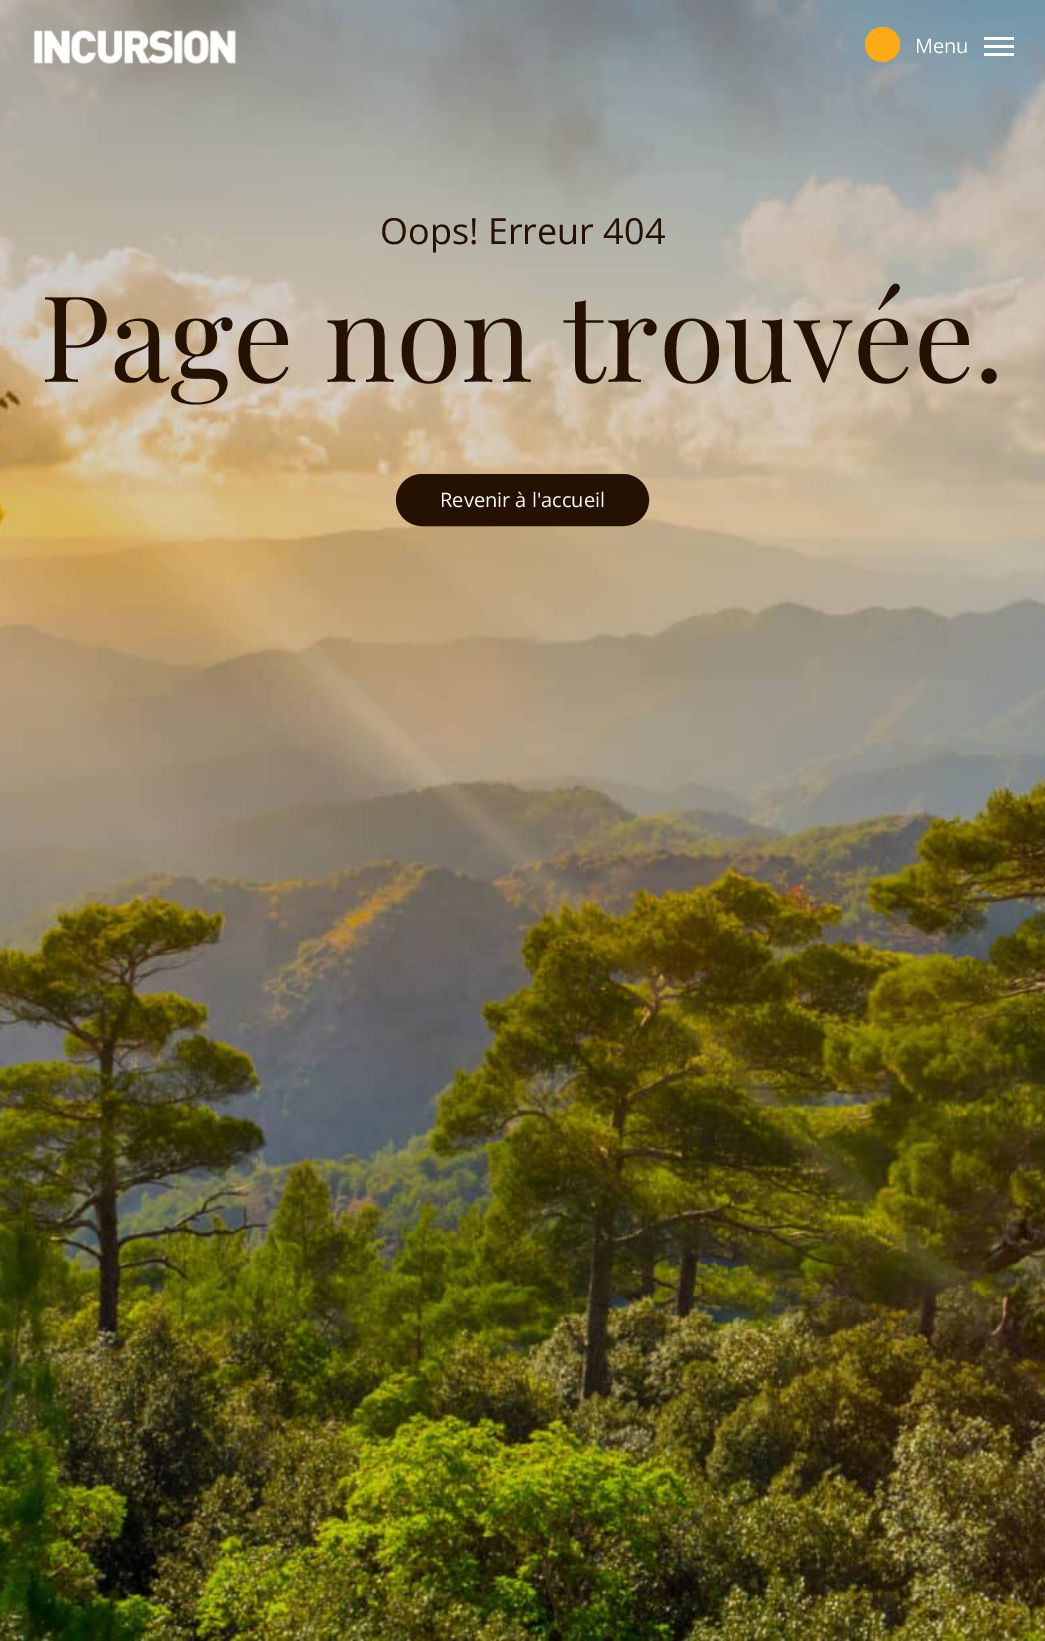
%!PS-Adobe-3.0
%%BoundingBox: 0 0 1045 1641
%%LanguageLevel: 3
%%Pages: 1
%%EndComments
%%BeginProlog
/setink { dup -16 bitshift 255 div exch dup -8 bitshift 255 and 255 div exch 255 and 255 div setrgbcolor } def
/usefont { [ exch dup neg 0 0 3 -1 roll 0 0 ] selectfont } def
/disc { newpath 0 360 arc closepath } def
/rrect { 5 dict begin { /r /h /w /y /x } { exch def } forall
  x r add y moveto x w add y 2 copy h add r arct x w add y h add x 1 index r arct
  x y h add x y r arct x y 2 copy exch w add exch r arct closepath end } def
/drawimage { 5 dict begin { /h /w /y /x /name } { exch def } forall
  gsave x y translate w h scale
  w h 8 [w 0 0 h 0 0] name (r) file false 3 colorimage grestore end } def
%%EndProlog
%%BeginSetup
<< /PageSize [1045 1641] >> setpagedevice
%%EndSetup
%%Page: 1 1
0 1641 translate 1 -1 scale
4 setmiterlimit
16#FFFFFF setink
0 0 1045 1641 rectfill
(img2.raw) 0 0 1045 1641 drawimage
(img1.raw) 33 30 203 34 drawimage
16#FCAB17 setink
882.5 44.5 17.5 disc fill
/OpenSans-Regular 20 usefont
16#FFFFFF setink
915 53 moveto (Menu) show
[
    [984 45 30 3 16#FFFFFF]
    [984 37 30 3 16#FFFFFF]
    [984 53 30 3 16#FFFFFF]
] { aload pop setink rectfill } forall
/OpenSans-Regular 36 usefont
16#241101 setink
380 244 moveto (Oops! Erreur 404) show
/PlayfairDisplay-Regular 120 usefont
40 382 moveto (Page non trouvée.) show
397 475 251 50 25 rrect gsave fill grestore
2 setlinewidth
stroke
/OpenSans-Regular 20 usefont
16#FFFFFF setink
440 507 moveto (Revenir à l'accueil) show
showpage
%%EOF
